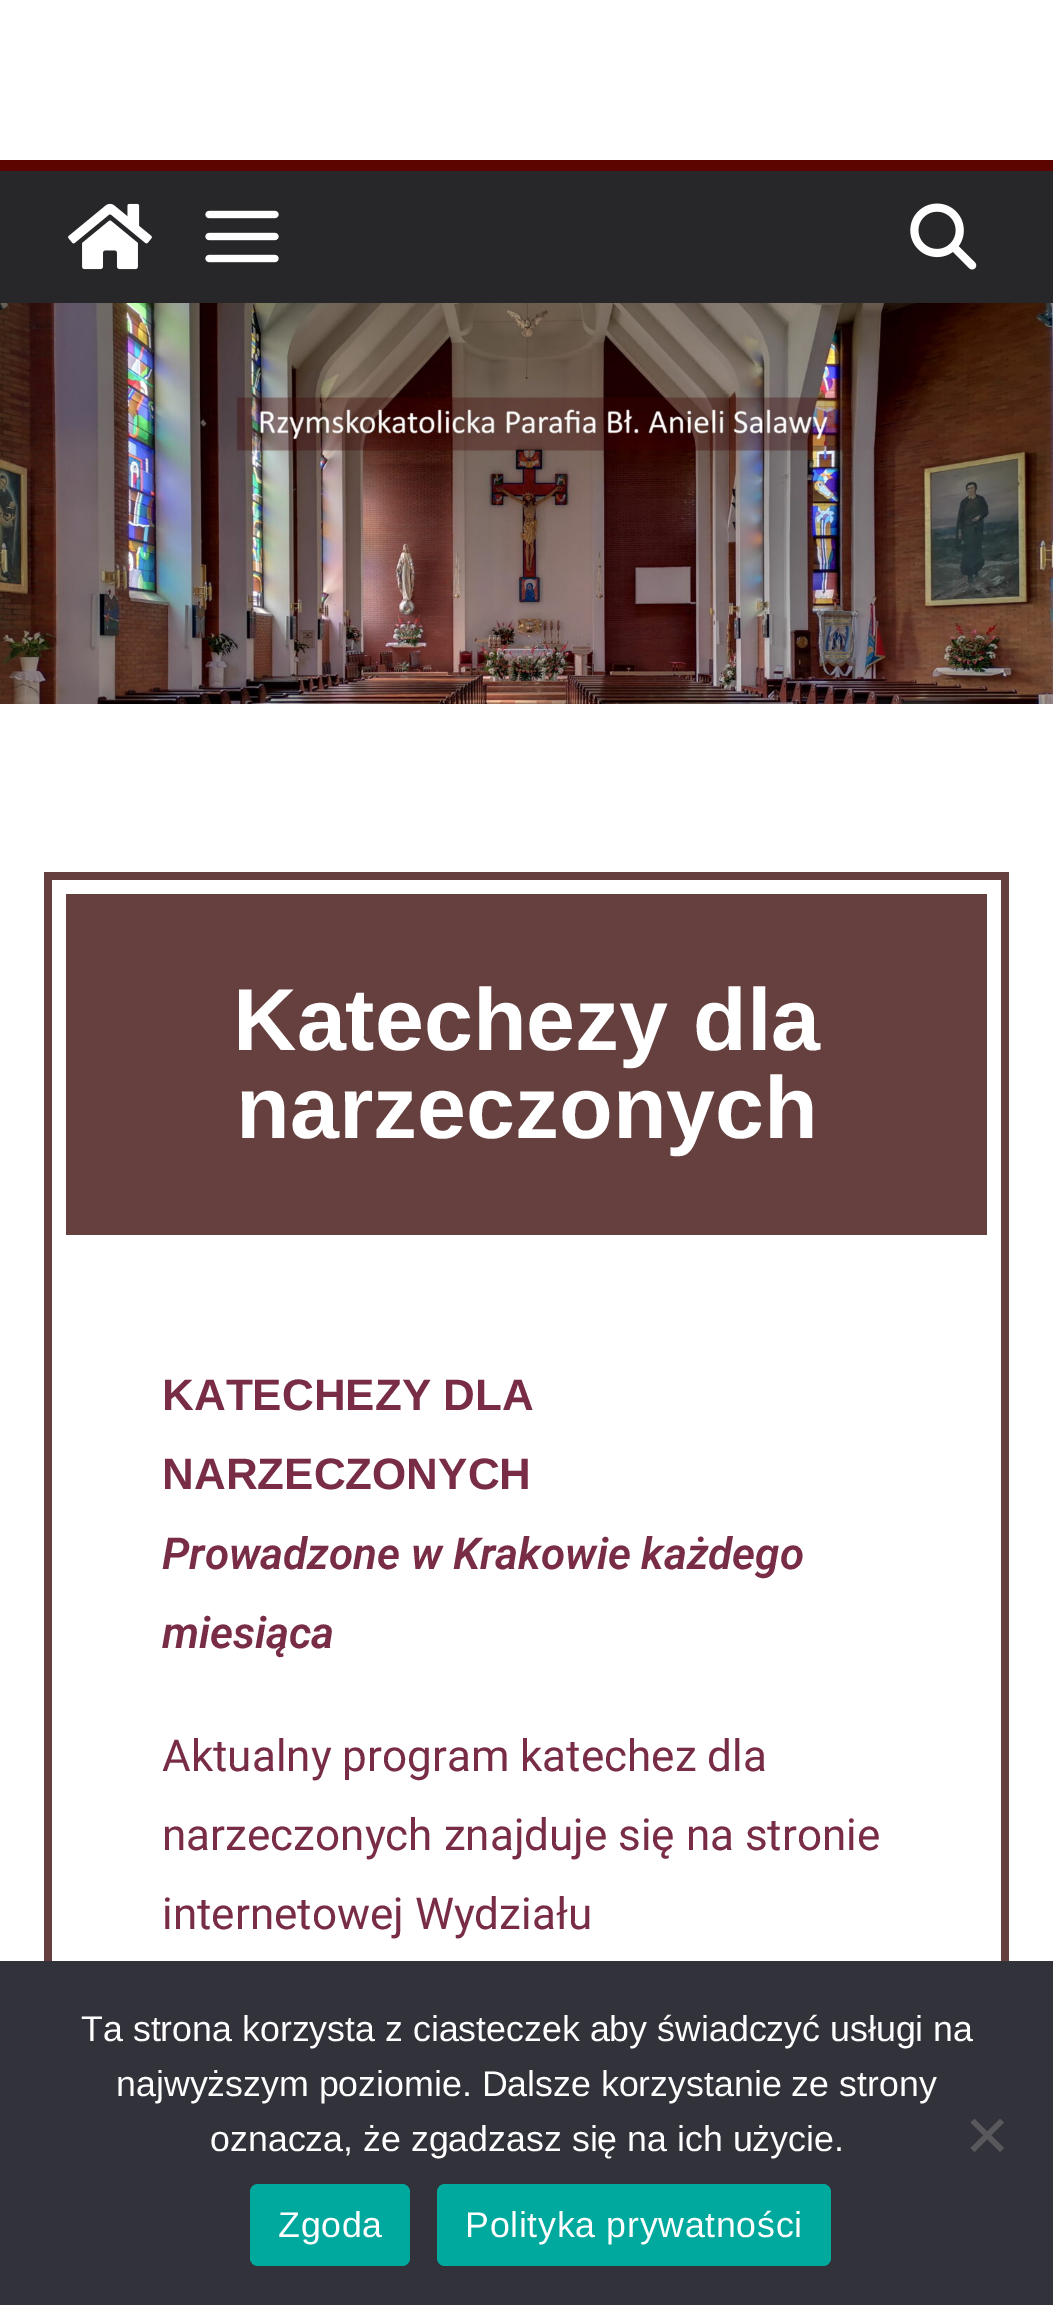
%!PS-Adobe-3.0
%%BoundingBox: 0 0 1053 2305
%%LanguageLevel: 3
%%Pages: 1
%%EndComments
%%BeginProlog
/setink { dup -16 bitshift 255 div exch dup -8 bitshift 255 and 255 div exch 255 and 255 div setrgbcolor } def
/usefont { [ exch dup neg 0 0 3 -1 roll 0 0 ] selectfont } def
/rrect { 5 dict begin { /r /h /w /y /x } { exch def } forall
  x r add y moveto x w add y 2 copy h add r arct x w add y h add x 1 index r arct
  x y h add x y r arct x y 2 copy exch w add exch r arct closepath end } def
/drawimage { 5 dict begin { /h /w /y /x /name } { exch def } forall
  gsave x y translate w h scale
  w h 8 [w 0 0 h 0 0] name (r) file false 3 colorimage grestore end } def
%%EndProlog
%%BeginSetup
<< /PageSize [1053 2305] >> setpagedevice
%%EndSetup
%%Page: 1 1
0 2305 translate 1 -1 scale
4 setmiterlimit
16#FFFFFF setink
0 0 1053 2305 rectfill
16#27272A setink
0 171 1053 132 rectfill
16#5B0400 setink
0 160 1053 11 rectfill
(img1.raw) 68 203 84 67 drawimage
(img2.raw) 205 210 74 53 drawimage
(img3.raw) 910 203 67 67 drawimage
(img4.raw) 0 303 1053 401 drawimage
[
    [44 872 965 1089 16#663F3F]
    [52 880 949 1081 16#FFFFFF]
    [66 894 921 341 16#663F3F]
] { aload pop setink rectfill } forall
/LiberationSans-Bold 88 usefont
16#FFFFFF setink
233 1050 moveto (Katechezy dla) show
236 1138 moveto (narzeczonych) show
/LiberationSans-Bold 44 usefont
16#782C46 setink
162 1410 moveto (KATECHEZY DLA) show
162 1489 moveto (NARZECZONYCH) show
/Roboto-SemiBoldItalic 44 usefont
162 1569 moveto (Prowadzone w Krakowie każdego) show
162 1648 moveto (miesiąca) show
/Roboto-Regular 44 usefont
[
    [(Aktualny program katechez dla) 162 1771]
    [(narzeczonych znajduje się na stronie) 162 1850]
    [(internetowej Wydziału) 162 1929]
] { aload pop moveto show } forall
16#32323A setink
0 1961 1053 344 rectfill
/LiberationSans-Regular 35.75 usefont
16#FFFFFF setink
[
    [(Ta strona korzysta z ciasteczek aby świadczyć usługi na) 81 2041]
    [(najwyższym poziomie. Dalsze korzystanie ze strony) 116 2096]
    [(oznacza, że zgadzasz się na ich użycie.) 210 2151]
] { aload pop moveto show } forall
16#59595D setink
1000 2119 moveto 1004 2122.5 lineto 974.5 2152 lineto 970.5 2148 lineto closepath fill
970.5 2122.5 moveto 974.5 2119 lineto 1004 2148 lineto 1000 2152 lineto closepath fill
16#00A99D setink
250 2184 160 82 8 rrect fill
16#FFFFFF setink
278 2237 moveto 0.7 0 (Zgoda) ashow
16#00A99D setink
437 2184 394 82 8 rrect fill
16#FFFFFF setink
465 2237 moveto 0.7 0 (Polityka prywatności) ashow
showpage
%%EOF
